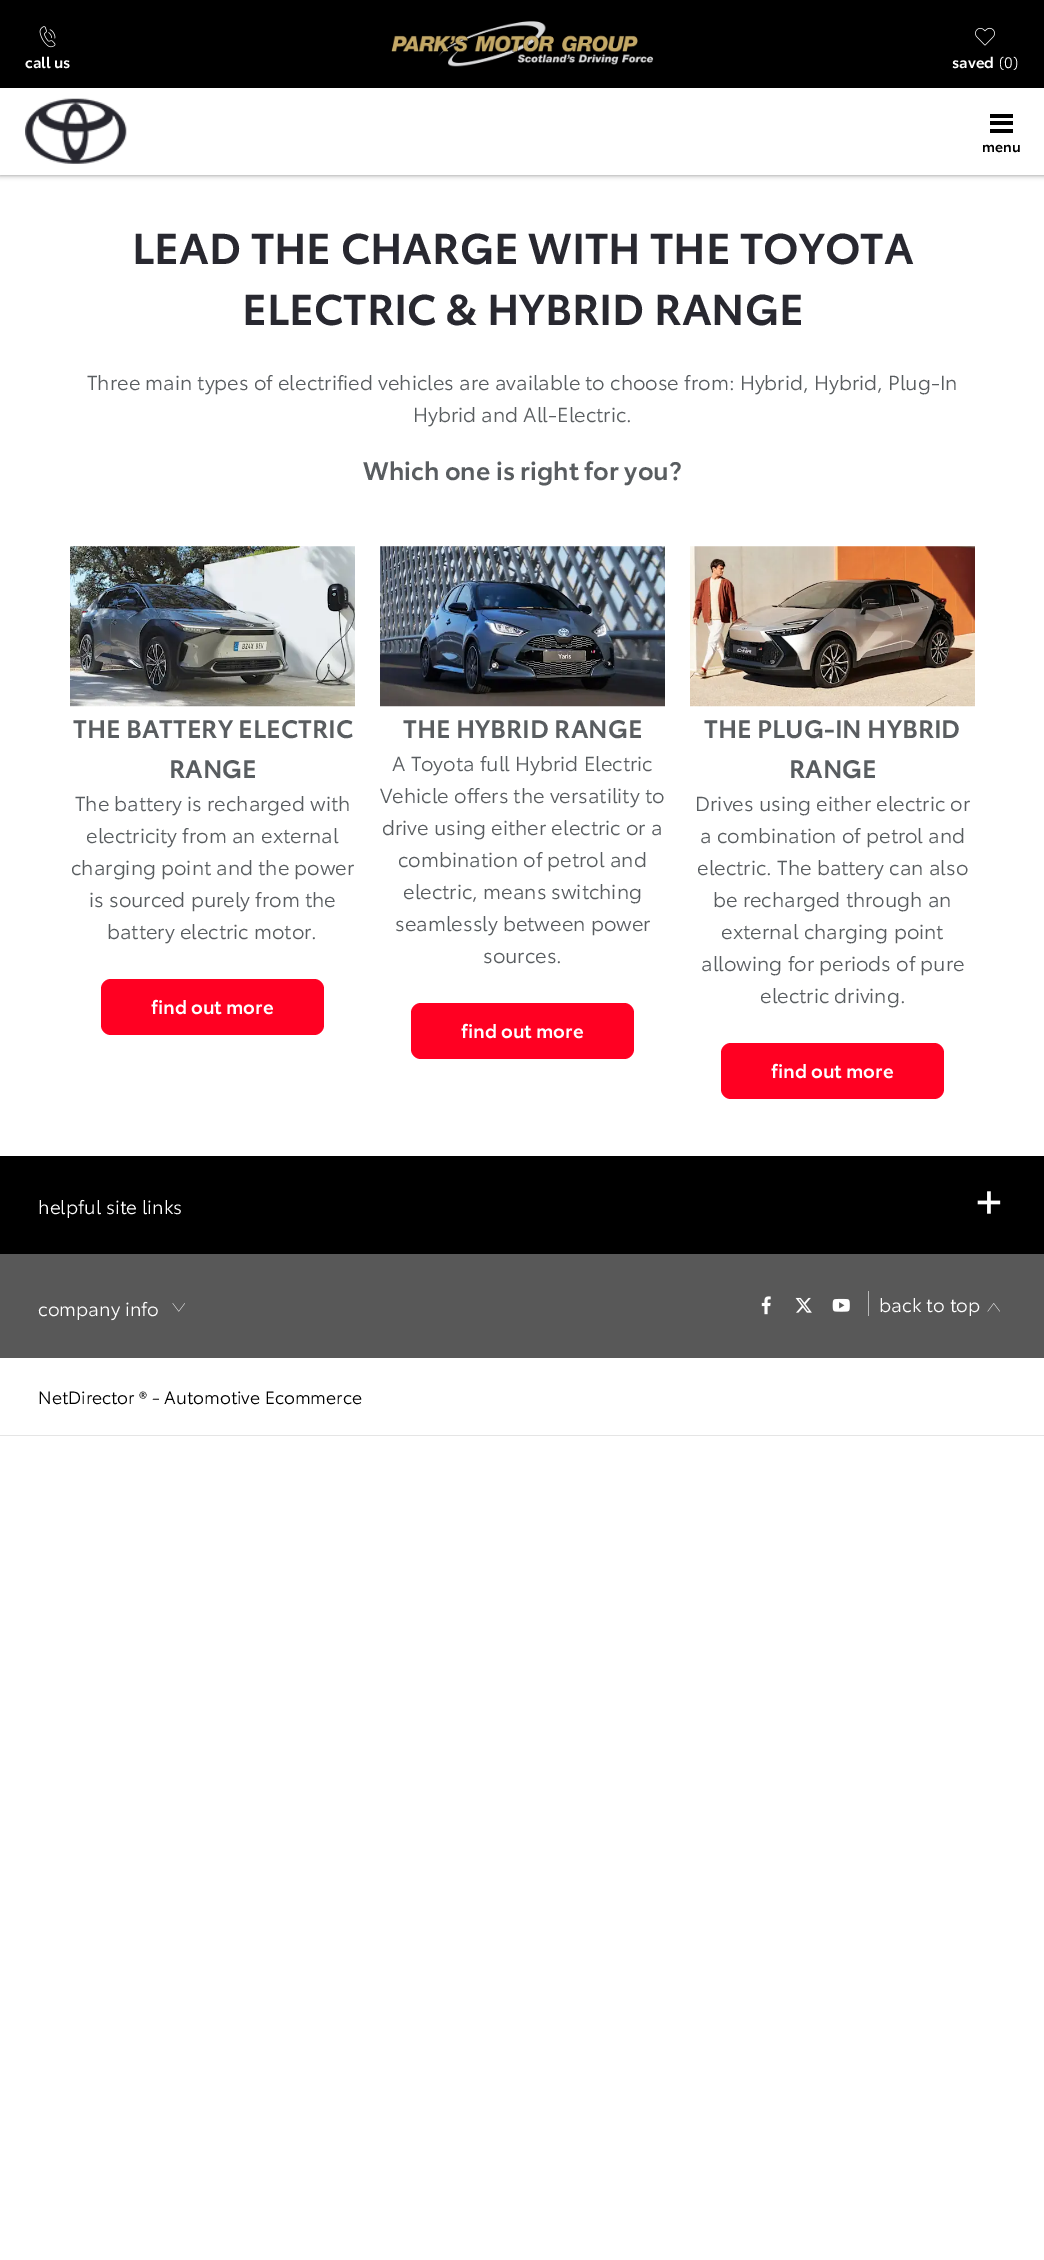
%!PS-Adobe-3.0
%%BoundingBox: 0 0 1044 2260
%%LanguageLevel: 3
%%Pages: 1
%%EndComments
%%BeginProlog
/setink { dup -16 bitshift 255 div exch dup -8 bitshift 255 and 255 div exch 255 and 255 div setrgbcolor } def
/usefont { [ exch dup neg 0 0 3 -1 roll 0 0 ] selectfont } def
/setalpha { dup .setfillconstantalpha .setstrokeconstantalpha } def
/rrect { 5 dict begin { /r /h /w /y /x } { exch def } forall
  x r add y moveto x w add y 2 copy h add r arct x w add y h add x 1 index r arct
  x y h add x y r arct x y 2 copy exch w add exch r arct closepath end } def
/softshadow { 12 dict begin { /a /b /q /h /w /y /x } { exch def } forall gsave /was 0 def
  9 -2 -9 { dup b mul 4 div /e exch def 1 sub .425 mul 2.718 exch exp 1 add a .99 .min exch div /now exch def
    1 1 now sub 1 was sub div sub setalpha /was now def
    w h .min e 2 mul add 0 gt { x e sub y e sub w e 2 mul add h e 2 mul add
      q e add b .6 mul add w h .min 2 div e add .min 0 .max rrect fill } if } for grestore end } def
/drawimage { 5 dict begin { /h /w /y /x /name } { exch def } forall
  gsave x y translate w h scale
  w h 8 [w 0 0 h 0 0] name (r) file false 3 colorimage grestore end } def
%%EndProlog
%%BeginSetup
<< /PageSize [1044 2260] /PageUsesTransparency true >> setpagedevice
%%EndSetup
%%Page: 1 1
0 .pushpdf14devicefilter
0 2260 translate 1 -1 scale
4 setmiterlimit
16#FFFFFF setink
0 0 1044 2260 rectfill
16#000000 setink
0 0 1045 175 0 3 0.3 softshadow
0 0 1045 175 0 2 0.2 softshadow
0 0 1044 88 rectfill
(img1.raw) 39 26 17 22 drawimage
/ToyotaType-SemiBold 15 usefont
16#FFFFFF setink
25 68 moveto (call us) show
(img2.raw) 391 21 263 46 drawimage
(img3.raw) 975 27 20 19 drawimage
952 68 moveto (saved) show
/ToyotaType-Regular 15 usefont
999 68 moveto (\(0\)) show
0 88 1044 87 rectfill
(img4.raw) 25 98 102 66 drawimage
[
    [990 129 23 4 16#000000]
    [990 114 23 4 16#000000]
    [990 121 23 4 16#000000]
] { aload pop setink rectfill } forall
/ToyotaType-SemiBold 14 usefont
982 152 moveto (menu) show
/ToyotaType-SemiBold 42.5 usefont
16#282830 setink
132 264 moveto (LEAD THE CHARGE WITH THE TOYOTA) show
242 325 moveto (ELECTRIC & HYBRID RANGE) show
/ToyotaType-Regular 20 usefont
16#595D60 setink
87 390 moveto (Three main types of electrified vehicles are available to choose from: Hybrid, Hybrid, Plug-In) show
413 422 moveto (Hybrid and All-Electric.) show
/ToyotaType-SemiBold 25 usefont
363 480 moveto (Which one is right for you?) show
(img5.raw) 70 546 285 161 drawimage
73 738 moveto (THE BATTERY ELECTRIC) show
169 778 moveto (RANGE) show
/ToyotaType-Regular 20 usefont
[
    [(The battery is recharged with) 75 811]
    [(electricity from an external) 86 843]
    [(charging point and the power) 71 875]
    [(is sourced purely from the) 89 907]
    [(battery electric motor.) 107 939]
] { aload pop moveto show } forall
16#FF0022 setink
101 979 223 56 10 rrect fill
/ToyotaType-SemiBold 18.75 usefont
16#FFFFFF setink
151 1014 moveto (find out more) show
(img6.raw) 380 546 285 161 drawimage
/ToyotaType-SemiBold 25 usefont
16#595D60 setink
403 738 moveto (THE HYBRID RANGE) show
/ToyotaType-Regular 20 usefont
[
    [(A Toyota full Hybrid Electric) 392 771]
    [(Vehicle offers the versatility to) 380 803]
    [(drive using either electric or a) 382 835]
    [(combination of petrol and) 398 867]
    [(electric, means switching) 403 899]
    [(seamlessly between power) 395 931]
    [(sources.) 483 963]
] { aload pop moveto show } forall
16#FF0022 setink
411 1003 223 56 10 rrect fill
/ToyotaType-SemiBold 18.75 usefont
16#FFFFFF setink
461 1038 moveto (find out more) show
(img7.raw) 690 546 285 161 drawimage
/ToyotaType-SemiBold 25 usefont
16#595D60 setink
704 738 moveto (THE PLUG-IN HYBRID) show
789 778 moveto (RANGE) show
/ToyotaType-Regular 20 usefont
[
    [(Drives using either electric or) 695 811]
    [(a combination of petrol and) 700 843]
    [(electric. The battery can also) 697 875]
    [(be recharged through an) 713 907]
    [(external charging point) 721 939]
    [(allowing for periods of pure) 701 971]
    [(electric driving.) 760 1003]
] { aload pop moveto show } forall
16#FF0022 setink
721 1043 223 56 10 rrect fill
/ToyotaType-SemiBold 18.75 usefont
16#FFFFFF setink
771 1078 moveto (find out more) show
16#585858 setink
0 1254 1044 104 rectfill
16#000000 setink
0 1156 1044 98 rectfill
/ToyotaType-Regular 18.75 usefont
16#FFFFFF setink
38 1214 moveto (helpful site links) show
(img8.raw) 977 1191 24 23 drawimage
38 1316 moveto (company info) show
(img9.raw) 172 1303 13 9 drawimage
(img10.raw) 761 1296 10 19 drawimage
(img11.raw) 795 1297 17 16 drawimage
(img12.raw) 832 1298 18 14 drawimage
16#B9B9B9 setink
868 1291 1 25 rectfill
16#FFFFFF setink
879 1312 moveto (back to top) show
(img13.raw) 987 1303 13 9 drawimage
16#E5E5E5 setink
0 1435 1044 1 rectfill
/ToyotaType-Regular 17.5 usefont
16#000000 setink
38 1404 moveto (NetDirector ® - Automotive Ecommerce) show
.poppdf14devicefilter showpage
%%EOF
